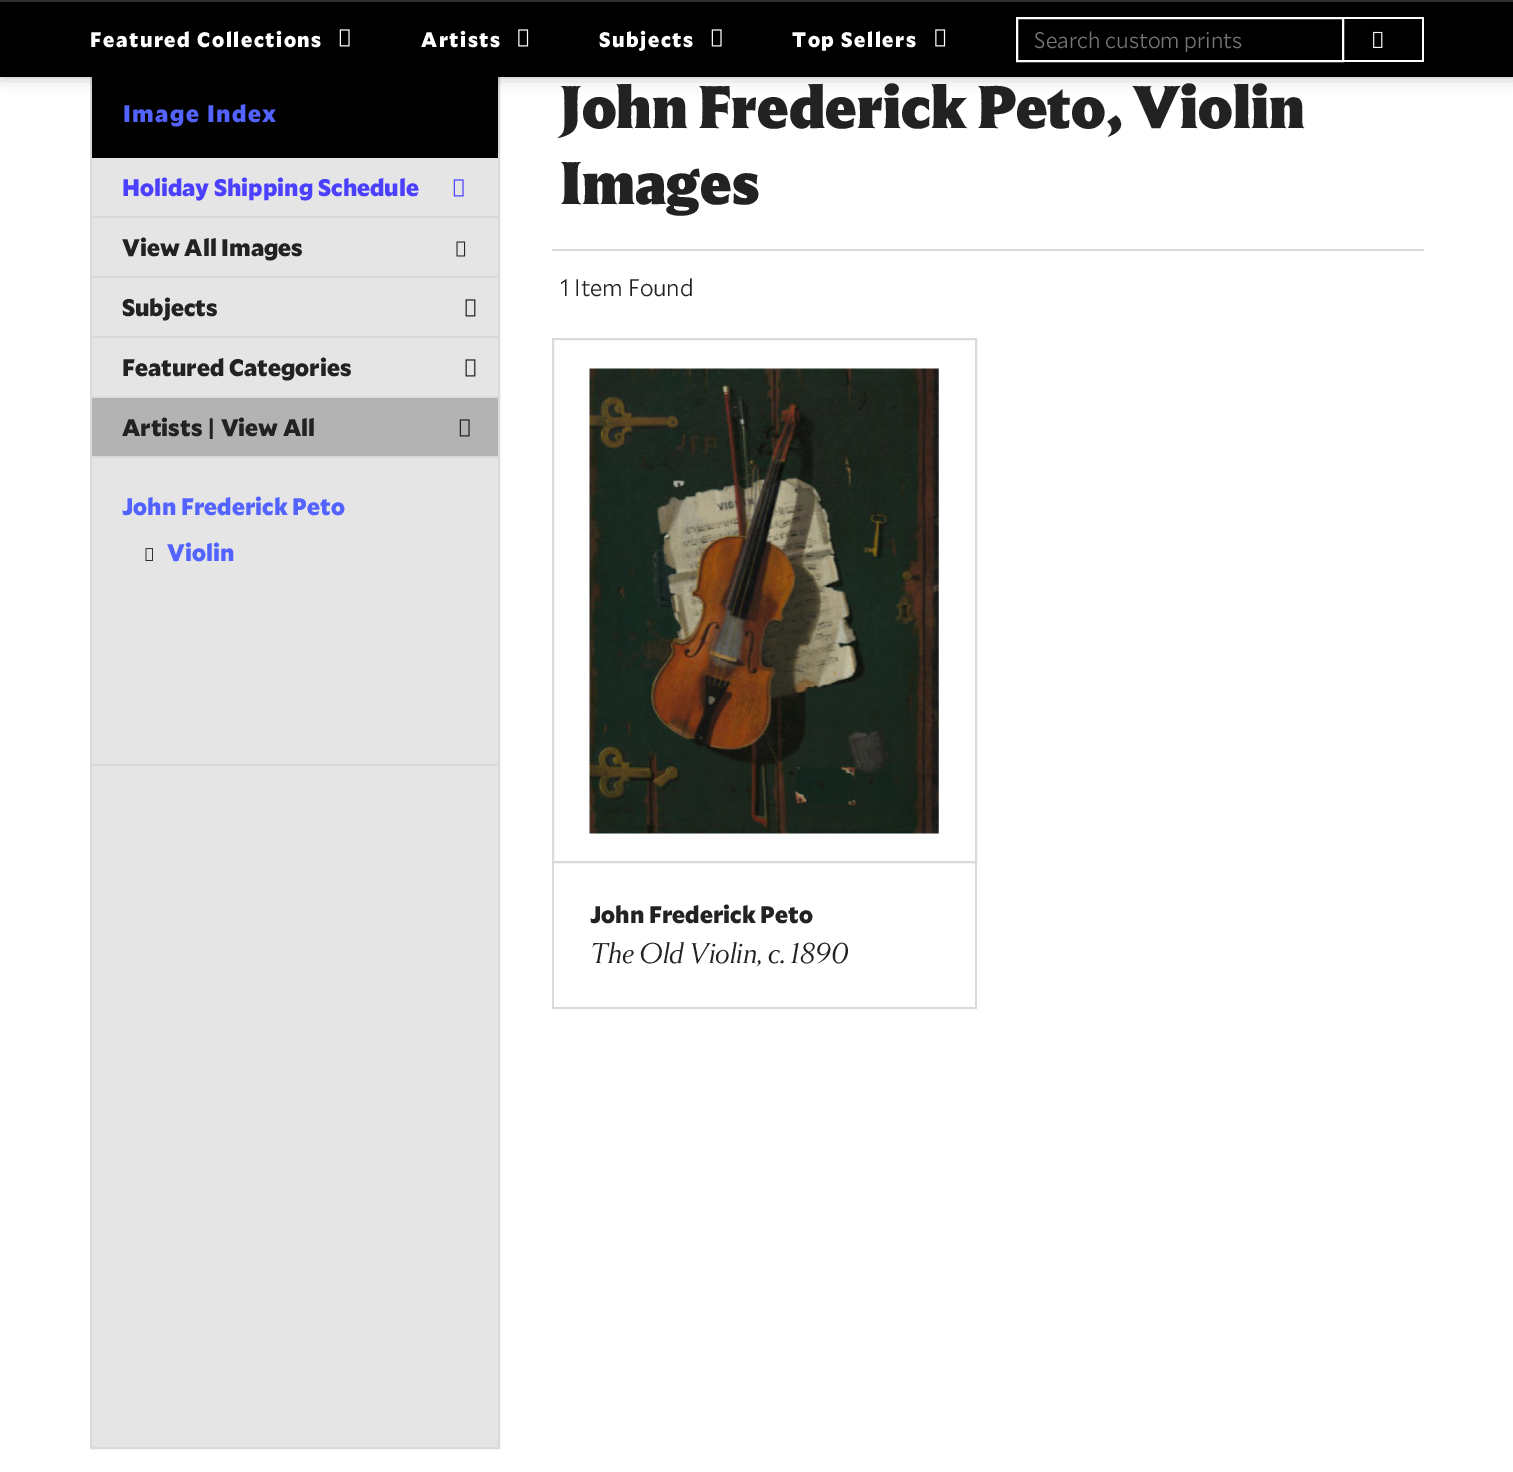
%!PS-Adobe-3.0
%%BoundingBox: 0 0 1513 1472
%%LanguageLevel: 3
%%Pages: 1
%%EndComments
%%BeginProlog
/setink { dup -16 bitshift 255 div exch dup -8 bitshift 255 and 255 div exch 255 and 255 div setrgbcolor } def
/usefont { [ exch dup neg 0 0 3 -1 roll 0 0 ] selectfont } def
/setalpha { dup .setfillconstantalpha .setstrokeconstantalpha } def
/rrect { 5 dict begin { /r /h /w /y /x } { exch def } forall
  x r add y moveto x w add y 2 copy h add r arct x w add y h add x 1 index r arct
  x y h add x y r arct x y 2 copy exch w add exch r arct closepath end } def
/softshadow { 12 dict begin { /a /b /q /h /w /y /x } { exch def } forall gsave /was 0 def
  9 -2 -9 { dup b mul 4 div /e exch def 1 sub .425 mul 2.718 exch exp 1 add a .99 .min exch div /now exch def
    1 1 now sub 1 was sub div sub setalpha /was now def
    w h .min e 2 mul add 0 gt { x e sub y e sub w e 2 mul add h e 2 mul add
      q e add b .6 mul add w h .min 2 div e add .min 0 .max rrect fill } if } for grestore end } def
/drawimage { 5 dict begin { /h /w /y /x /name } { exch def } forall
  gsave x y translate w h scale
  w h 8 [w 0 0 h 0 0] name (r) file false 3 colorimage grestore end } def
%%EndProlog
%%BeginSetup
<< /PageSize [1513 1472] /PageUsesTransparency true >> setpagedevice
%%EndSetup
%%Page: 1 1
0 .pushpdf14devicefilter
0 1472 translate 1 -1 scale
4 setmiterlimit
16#FFFFFF setink
0 0 1513 1472 rectfill
16#E6E5E6 setink
92 158 406 1289 rectfill
16#DADADA setink
2 setlinewidth
91 67 408 1381 rectstroke
16#000000 setink
92 77 406 81 rectfill
0 0 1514 77 0 7.5 0.25 softshadow
0 2 1513 75 rectfill
16#303030 setink
0 0 1513 2 rectfill
/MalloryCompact-Black 21 usefont
16#FFFFFF setink
90 47 moveto 1.5 0 (Featured Collections) ashow
(img1.raw) 339 29 11 18 drawimage
421 47 moveto 1.5 0 (Artists) ashow
(img2.raw) 518 29 11 18 drawimage
599 47 moveto 1.5 0 (Subjects) ashow
(img1.raw) 711 29 11 18 drawimage
792 47 moveto 1.5 0 (Top Sellers) ashow
(img2.raw) 935 29 11 18 drawimage
1017 18 326 43 rectstroke
/MalloryCompact-Light 22.5 usefont
16#757575 setink
1034 48 moveto (Search custom prints) show
[
    [1344 17 80 2 16#FFFFFF]
    [1422 17 2 45 16#FFFFFF]
    [1344 60 80 2 16#FFFFFF]
] { aload pop setink rectfill } forall
(img3.raw) 1373 31 10 17 drawimage
/MalloryCompact-Black 24 usefont
16#5263FF setink
123 122 moveto 1.5 0 (Image Index) ashow
16#DADADA setink
92 216 406 2 rectfill
16#4C40FF setink
122 196 moveto (Holiday Shipping Schedule) show
(img4.raw) 453 179 11 18 drawimage
16#DADADA setink
92 276 406 2 rectfill
16#222222 setink
122 256 moveto (View All Images) show
(img5.raw) 456 241 10 16 drawimage
16#DADADA setink
92 336 406 2 rectfill
16#222222 setink
122 316 moveto (Subjects) show
(img6.raw) 465 299 11 18 drawimage
16#DADADA setink
92 396 406 2 rectfill
16#222222 setink
122 376 moveto (Featured Categories) show
(img6.raw) 465 359 11 18 drawimage
16#B3B3B3 setink
92 398 406 58 rectfill
16#DADADA setink
92 456 406 2 rectfill
16#222222 setink
122 436 moveto (Artists | View All) show
(img7.raw) 459 419 11 18 drawimage
16#DADADA setink
92 764 406 2 rectfill
16#5263FF setink
122 515 moveto (John Frederick Peto) show
(img8.raw) 145 548 8 13 drawimage
167 561 moveto (Violin) show
16#DADADA setink
552 249 872 2 rectfill
/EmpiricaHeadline-Black 60 usefont
16#222222 setink
560 128 moveto (John Frederick Peto, Violin) show
560 204 moveto (Images) show
/MalloryCompact-Light 24 usefont
560 296 moveto (1 Item Found) show
16#DADADA setink
553 339 423 523 rectstroke
(img9.raw) 589 368 350 466 drawimage
[
    [975 863 2 145 16#DADADA]
    [552 1007 425 2 16#DADADA]
    [552 863 2 145 16#DADADA]
] { aload pop setink rectfill } forall
/MalloryCompact-Black 24 usefont
16#222222 setink
590 923 moveto (John Frederick Peto) show
/EmpiricaHeadline-LightItalic 28.5 usefont
590 963 moveto (The Old Violin, c. 1890) show
.poppdf14devicefilter showpage
%%EOF
